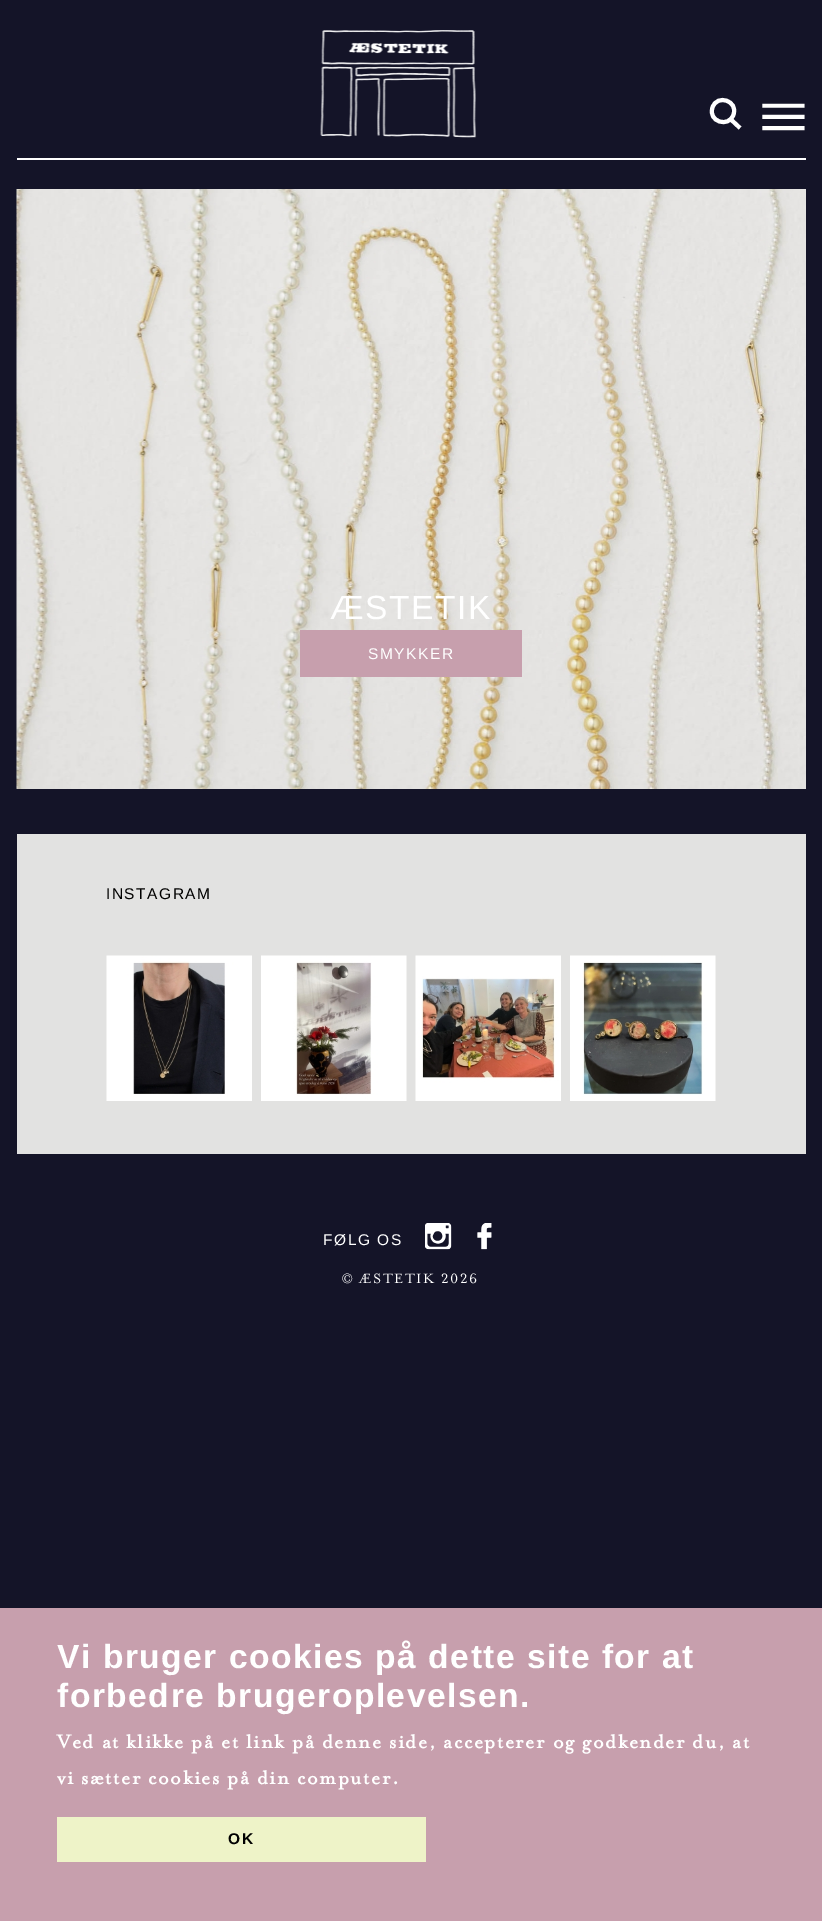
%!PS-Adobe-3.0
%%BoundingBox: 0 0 822 1921
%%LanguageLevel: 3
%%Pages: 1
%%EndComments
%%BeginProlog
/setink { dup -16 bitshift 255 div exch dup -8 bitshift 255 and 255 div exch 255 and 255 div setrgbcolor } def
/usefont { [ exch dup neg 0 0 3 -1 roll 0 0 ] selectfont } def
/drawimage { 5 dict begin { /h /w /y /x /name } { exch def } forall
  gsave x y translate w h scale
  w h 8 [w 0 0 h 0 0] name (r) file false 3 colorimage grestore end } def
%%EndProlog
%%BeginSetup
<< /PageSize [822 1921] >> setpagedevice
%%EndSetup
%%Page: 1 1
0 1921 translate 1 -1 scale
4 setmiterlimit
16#141428 setink
0 0 822 1921 rectfill
(img1.raw) 320 30 157 108 drawimage
16#FFFFFF setink
4 setlinewidth
732 120.5 moveto 740 128 lineto 712.5 107.5 moveto 717 93.5 738.5 101 733.5 114.5 curveto 729 128.5 707.5 121.5 712.5 107.5 curveto closepath stroke
(img2.raw) 762 103 43 28 drawimage
17 158 789 2 rectfill
(img3.raw) 16 189 790 600 drawimage
/LiberationSans-Regular 33.6 usefont
330 619 moveto 1.5 0 (ÆSTETIK) ashow
16#C79FAD setink
300 630 222 47 rectfill
/LiberationSans-Regular 15.5 usefont
16#FFFFFF setink
368 659 moveto 1.5 0 (SMYKKER) ashow
16#E2E2E1 setink
17 834 789 320 rectfill
16#000000 setink
106 899 moveto 1.5 0 (INSTAGRAM) ashow
(img4.raw) 106 955 146 146 drawimage
(img5.raw) 261 955 146 146 drawimage
(img6.raw) 415 955 146 146 drawimage
(img7.raw) 570 955 146 146 drawimage
16#FFFFFF setink
323 1245 moveto 1.5 0 (FØLG OS) ashow
(img8.raw) 425 1223 27 27 drawimage
(img9.raw) 477 1223 15 27 drawimage
/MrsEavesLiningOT-Regular 15.5 usefont
342 1283 moveto 1.5 0 (© ÆSTETIK 2026) ashow
16#C79FAD setink
0 1608 822 313 rectfill
/LiberationSans-Bold 33.6 usefont
16#FFFFFF setink
57 1668 moveto 1.5 0 (Vi bruger cookies på dette site for at) ashow
57 1707 moveto 1.5 0 (forbedre brugeroplevelsen.) ashow
/MrsEavesLiningOT-Bold 21.6 usefont
57 1748 moveto 1.5 0 (Ved at klikke på et link på denne side, accepterer og godkender du, at) ashow
57 1784 moveto 1.5 0 (vi sætter cookies på din computer.) ashow
16#EEF3C8 setink
57 1817 369 45 rectfill
/LiberationSans-Bold 15.5 usefont
16#000000 setink
228 1844 moveto 1.5 0 (OK) ashow
showpage
%%EOF
